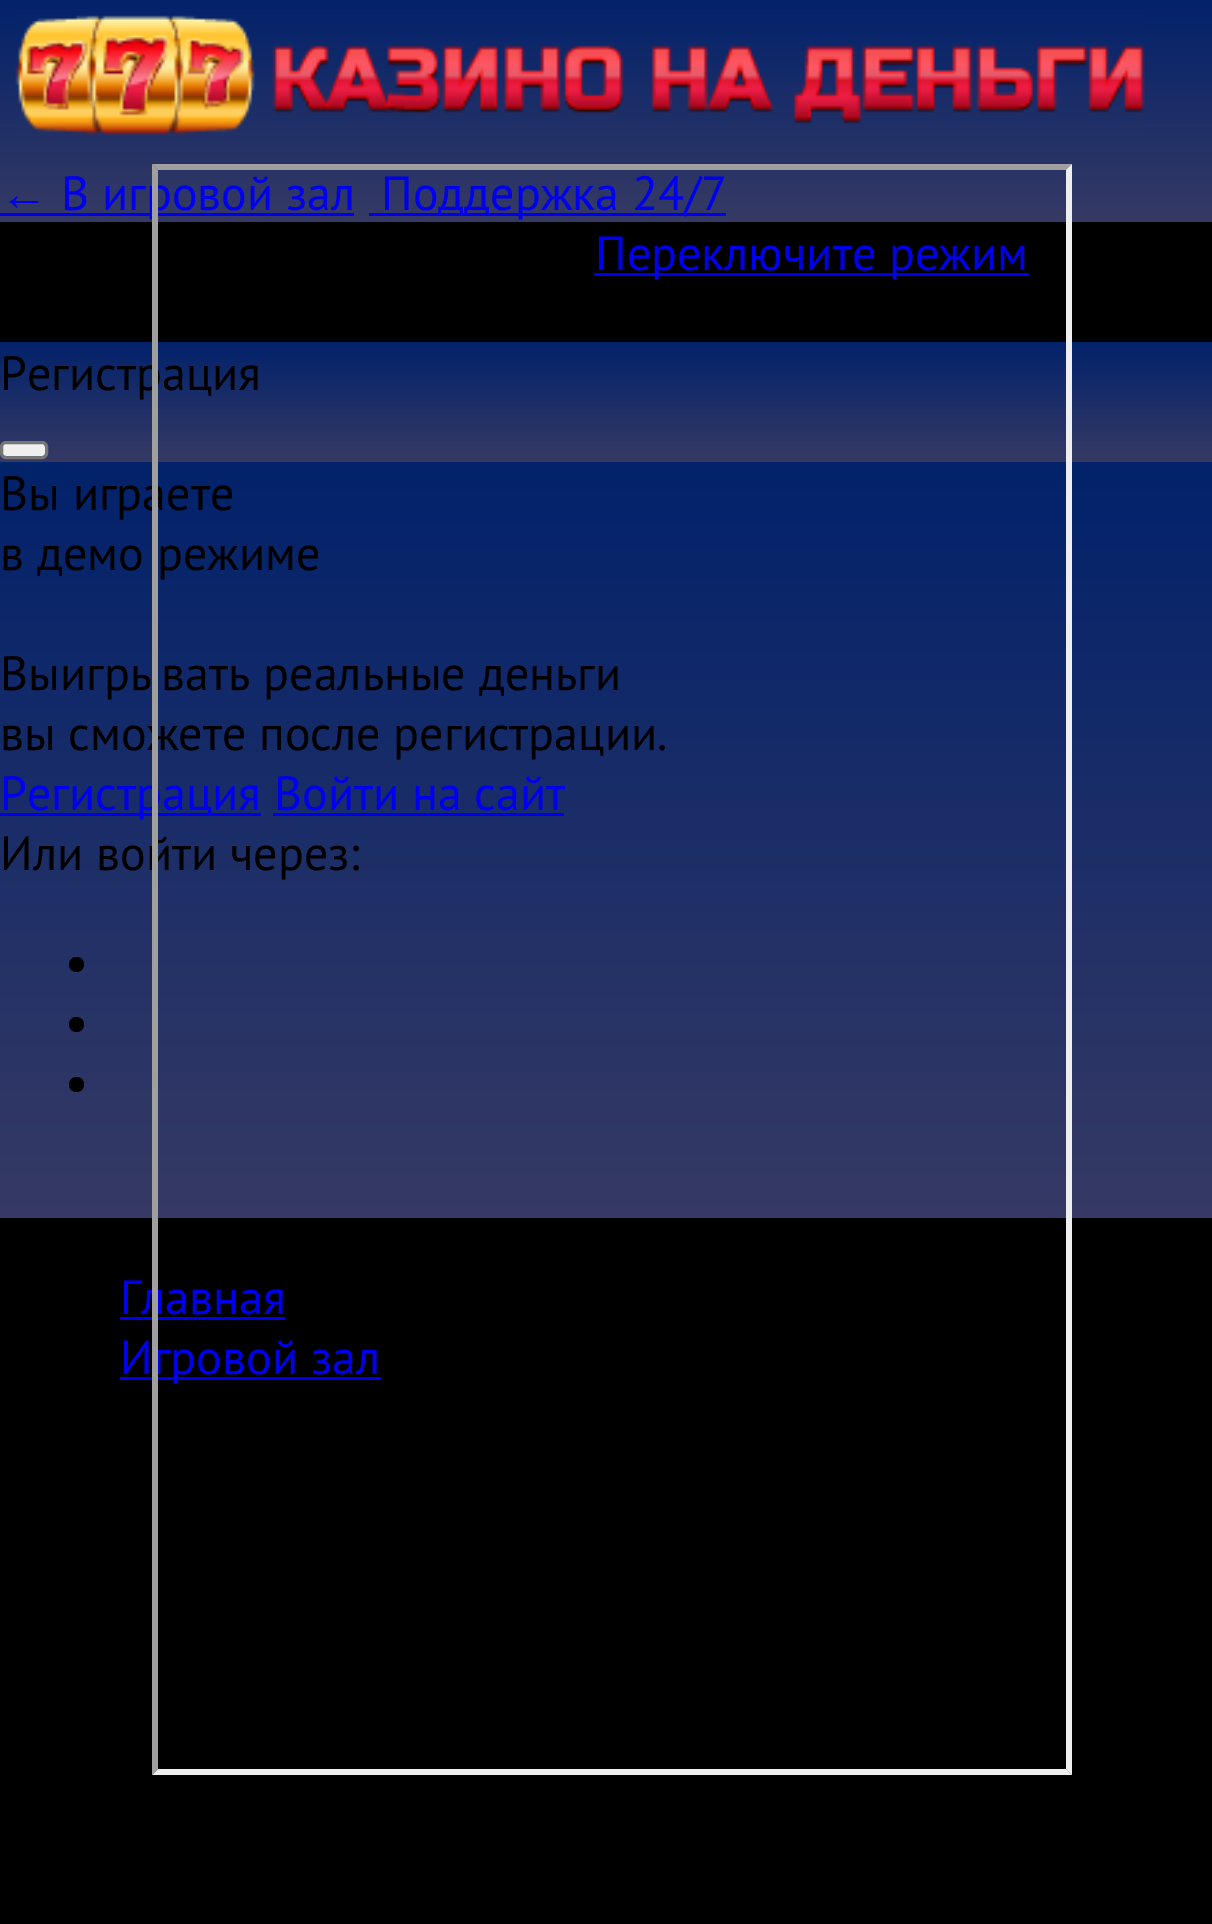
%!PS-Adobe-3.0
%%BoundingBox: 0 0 1212 1924
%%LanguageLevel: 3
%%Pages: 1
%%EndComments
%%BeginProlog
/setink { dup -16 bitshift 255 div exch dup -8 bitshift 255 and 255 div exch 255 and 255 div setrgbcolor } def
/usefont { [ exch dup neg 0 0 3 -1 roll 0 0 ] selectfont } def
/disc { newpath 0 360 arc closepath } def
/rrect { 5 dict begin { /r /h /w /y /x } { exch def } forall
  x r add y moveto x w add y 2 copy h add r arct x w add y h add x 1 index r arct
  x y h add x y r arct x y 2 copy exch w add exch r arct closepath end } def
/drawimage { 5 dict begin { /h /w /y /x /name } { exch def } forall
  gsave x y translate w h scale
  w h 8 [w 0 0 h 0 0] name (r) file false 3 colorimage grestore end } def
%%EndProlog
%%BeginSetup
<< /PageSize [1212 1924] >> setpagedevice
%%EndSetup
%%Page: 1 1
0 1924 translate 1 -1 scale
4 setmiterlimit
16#000000 setink
0 0 1212 1924 rectfill
gsave 0 0 moveto 1212 0 lineto 1212 222 lineto 0 222 lineto closepath clip newpath
<< /ShadingType 2 /ColorSpace /DeviceRGB /Coords [606 0 606 222] /Extend [true true] /Function << /FunctionType 2 /Domain [0 1] /C0 [0.008 0.133 0.42] /C1 [0.212 0.227 0.392] /N 1 >> >> shfill grestore
(img1.raw) 15 15 1130 120 drawimage
/LiberationSans-Regular 48 usefont
16#0000EE setink
0 210 moveto (←) show
0 213 354 3 rectfill
/PTSans-Regular 48 usefont
61 210 moveto (В игровой зал) show
369 213 357 3 rectfill
381 210 moveto (Поддержка 24/7) show
16#9F9F9F setink
152 164 moveto 1072 164 lineto 1066 170 lineto 158 170 lineto closepath fill
gsave 0 342 moveto 1212 342 lineto 1212 462 lineto 0 462 lineto closepath clip newpath
<< /ShadingType 2 /ColorSpace /DeviceRGB /Coords [606 342 606 462] /Extend [true true] /Function << /FunctionType 2 /Domain [0 1] /C0 [0.008 0.133 0.42] /C1 [0.212 0.227 0.392] /N 1 >> >> shfill grestore
gsave 0 462 moveto 1212 462 lineto 1212 1218 lineto 0 1218 lineto closepath clip newpath
<< /ShadingType 2 /ColorSpace /DeviceRGB /Coords [606 462 606 1218] /Extend [true true] /Function << /FunctionType 2 /Domain [0 1] /C0 [0.008 0.133 0.42] /C1 [0.212 0.227 0.392] /N 1 >> >> shfill grestore
16#EEEEEE setink
1072 164 moveto 1072 1775 lineto 1066 1769 lineto 1066 170 lineto closepath fill
1072 1775 moveto 152 1775 lineto 158 1769 lineto 1066 1769 lineto closepath fill
16#000000 setink
[
    [(Регистрация) 0 390]
    [(Вы играете) 0 510]
    [(в демо режиме) 0 570]
    [(Выигрывать реальные деньги) 0 690]
    [(вы сможете после регистрации.) 0 750]
] { aload pop moveto show } forall
16#0000EE setink
0 813 261 3 rectfill
0 810 moveto (Регистрация Войти на сайт) show
16#000000 setink
0 870 moveto (Или войти через:) show
16#0000EE setink
120 1314 moveto (Главная) show
120 1317 165 3 rectfill
120 1377 261 3 rectfill
120 1374 moveto (Игровой зал) show
16#9F9F9F setink
152 1775 moveto 152 164 lineto 158 170 lineto 158 1769 lineto closepath fill
16#0000EE setink
594 273 435 3 rectfill
595 270 moveto (Переключите режим) show
16#EFEFEF setink
1.5 442.5 45 15 4.5 rrect gsave fill grestore
16#767676 setink
3 setlinewidth
stroke
16#0000EE setink
273 813 291 3 rectfill
16#000000 setink
76.5 964.5 7.5 disc fill
76.5 1024.5 7.5 disc fill
76.5 1084.5 7.5 disc fill
showpage
%%EOF
